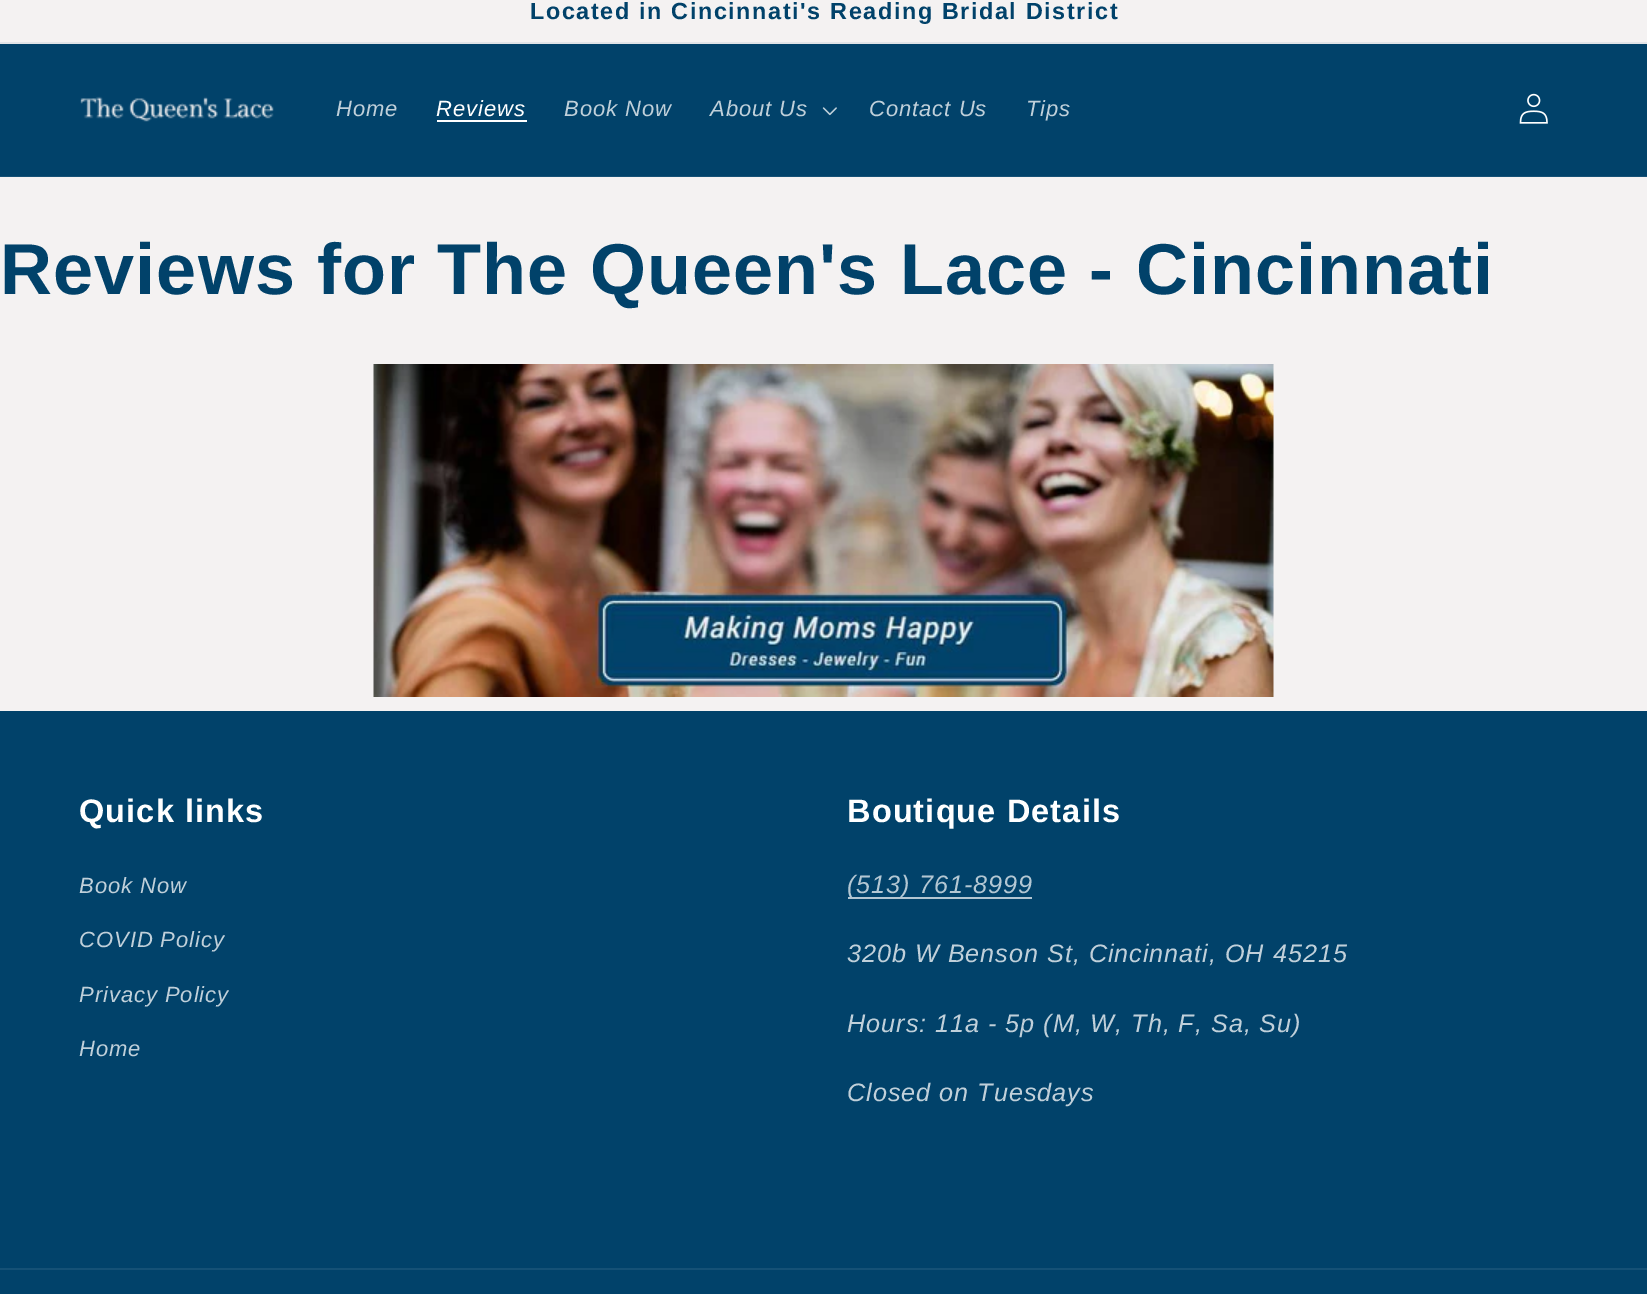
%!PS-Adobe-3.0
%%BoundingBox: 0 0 1647 1294
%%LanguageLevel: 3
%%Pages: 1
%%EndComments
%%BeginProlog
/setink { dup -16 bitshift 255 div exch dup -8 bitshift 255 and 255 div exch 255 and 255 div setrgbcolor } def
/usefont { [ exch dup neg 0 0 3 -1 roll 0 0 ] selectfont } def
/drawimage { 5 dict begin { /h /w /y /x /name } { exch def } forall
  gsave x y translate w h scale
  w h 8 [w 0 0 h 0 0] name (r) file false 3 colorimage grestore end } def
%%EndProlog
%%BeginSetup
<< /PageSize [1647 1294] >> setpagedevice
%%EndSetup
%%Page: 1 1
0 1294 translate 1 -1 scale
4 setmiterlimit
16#F4F2F2 setink
0 0 1647 1294 rectfill
16#E1E4E7 setink
0 42 1647 2 rectfill
/LiberationSans-Bold 23.4 usefont
16#01426A setink
530 19 moveto 1.6 0 (Located in Cincinnati's Reading Bridal District) ashow
0 44 1647 132 rectfill
16#155176 setink
0 176 1647 1 rectfill
(img1.raw) 80 96 194 26 drawimage
/LiberationSans-Italic 22 usefont
16#C0D0DA setink
336 116 moveto 0.95 0 (Home) ashow
16#FFFFFF setink
436 116 moveto 0.95 0 (Reviews) ashow
437 120 90 2 rectfill
16#C0D0DA setink
564 116 moveto 0.95 0 (Book Now) ashow
710 116 moveto 0.95 0 (About Us) ashow
(img2.raw) 822 107 15 9 drawimage
869 116 moveto 0.95 0 (Contact Us) ashow
1026 116 moveto 0.95 0 (Tips) ashow
(img3.raw) 1519 93 29 31 drawimage
/LiberationSans-Bold 72 usefont
16#01426A setink
0 294 moveto 1.1 0 (Reviews for The Queen's Lace - Cincinnati) ashow
(img4.raw) 373 364 901 333 drawimage
0 711 1647 583 rectfill
/LiberationSans-Bold 32.5 usefont
16#FFFFFF setink
79 822 moveto 1.1 0 (Quick links) ashow
/LiberationSans-Italic 22 usefont
16#C0D0DA setink
79 893 moveto 0.95 0 (Book Now) ashow
79 947 moveto 0.95 0 (COVID Policy) ashow
79 1002 moveto 0.95 0 (Privacy Policy) ashow
79 1056 moveto 0.95 0 (Home) ashow
/LiberationSans-Bold 32.5 usefont
16#FFFFFF setink
847 822 moveto 1.1 0 (Boutique Details) ashow
16#B3C6D2 setink
848 897 184 2 rectfill
/LiberationSans-Italic 25.25 usefont
16#B3C7D3 setink
847 893 moveto 0.95 0 (\(513\) 761-8999) ashow
16#C0D0DA setink
847 962 moveto 0.95 0 (320b W Benson St, Cincinnati, OH 45215) ashow
847 1032 moveto 0.95 0 (Hours: 11a - 5p \(M, W, Th, F, Sa, Su\)) ashow
847 1101 moveto 0.95 0 (Closed on Tuesdays) ashow
16#155176 setink
0 1268 1647 2 rectfill
showpage
%%EOF
